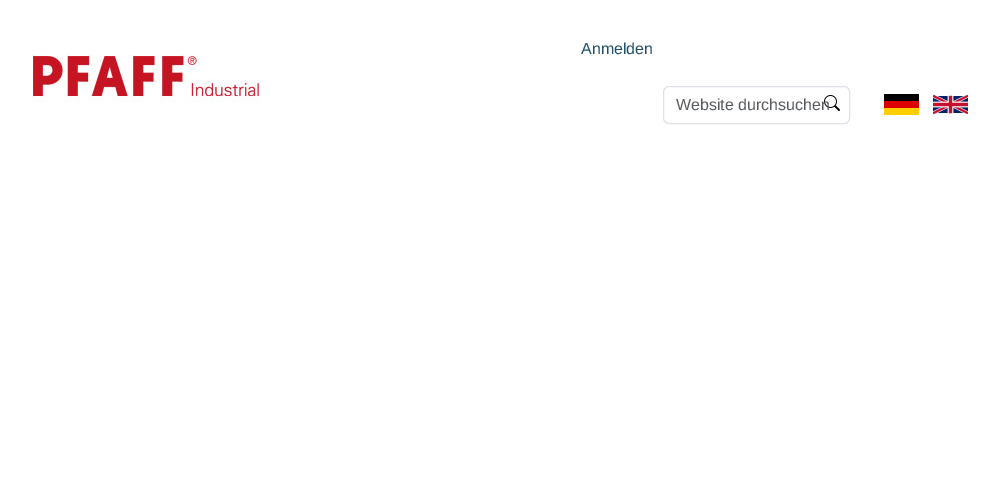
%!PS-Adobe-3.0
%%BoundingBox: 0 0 1000 488
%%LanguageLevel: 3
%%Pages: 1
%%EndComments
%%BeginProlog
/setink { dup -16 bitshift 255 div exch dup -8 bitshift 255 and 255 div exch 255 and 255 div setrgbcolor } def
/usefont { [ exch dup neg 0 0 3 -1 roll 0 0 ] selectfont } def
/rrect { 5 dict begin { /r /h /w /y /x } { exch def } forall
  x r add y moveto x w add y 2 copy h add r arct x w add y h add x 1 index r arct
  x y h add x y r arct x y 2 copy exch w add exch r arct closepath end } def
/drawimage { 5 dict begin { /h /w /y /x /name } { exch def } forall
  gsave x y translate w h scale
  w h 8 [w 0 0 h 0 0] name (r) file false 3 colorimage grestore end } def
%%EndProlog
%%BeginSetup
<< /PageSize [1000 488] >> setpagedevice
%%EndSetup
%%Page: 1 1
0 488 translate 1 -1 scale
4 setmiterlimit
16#FFFFFF setink
0 0 1000 488 rectfill
(img1.raw) 32 55 229 48 drawimage
/LiberationSans-Regular 16 usefont
16#234F69 setink
581 54 moveto (Anmelden) show
(img2.raw) 824 95 16 16 drawimage
16#DEE2E6 setink
663.5 86.5 186 37 5.5 rrect stroke
16#585B5E setink
676 110 moveto (Website durchsuchen) show
[
    [884 94 35 7 16#000000]
    [884 101 35 7 16#DD0000]
    [884 108 35 7 16#FFCE00]
] { aload pop setink rectfill } forall
(img3.raw) 933 94 35 21 drawimage
showpage
%%EOF
